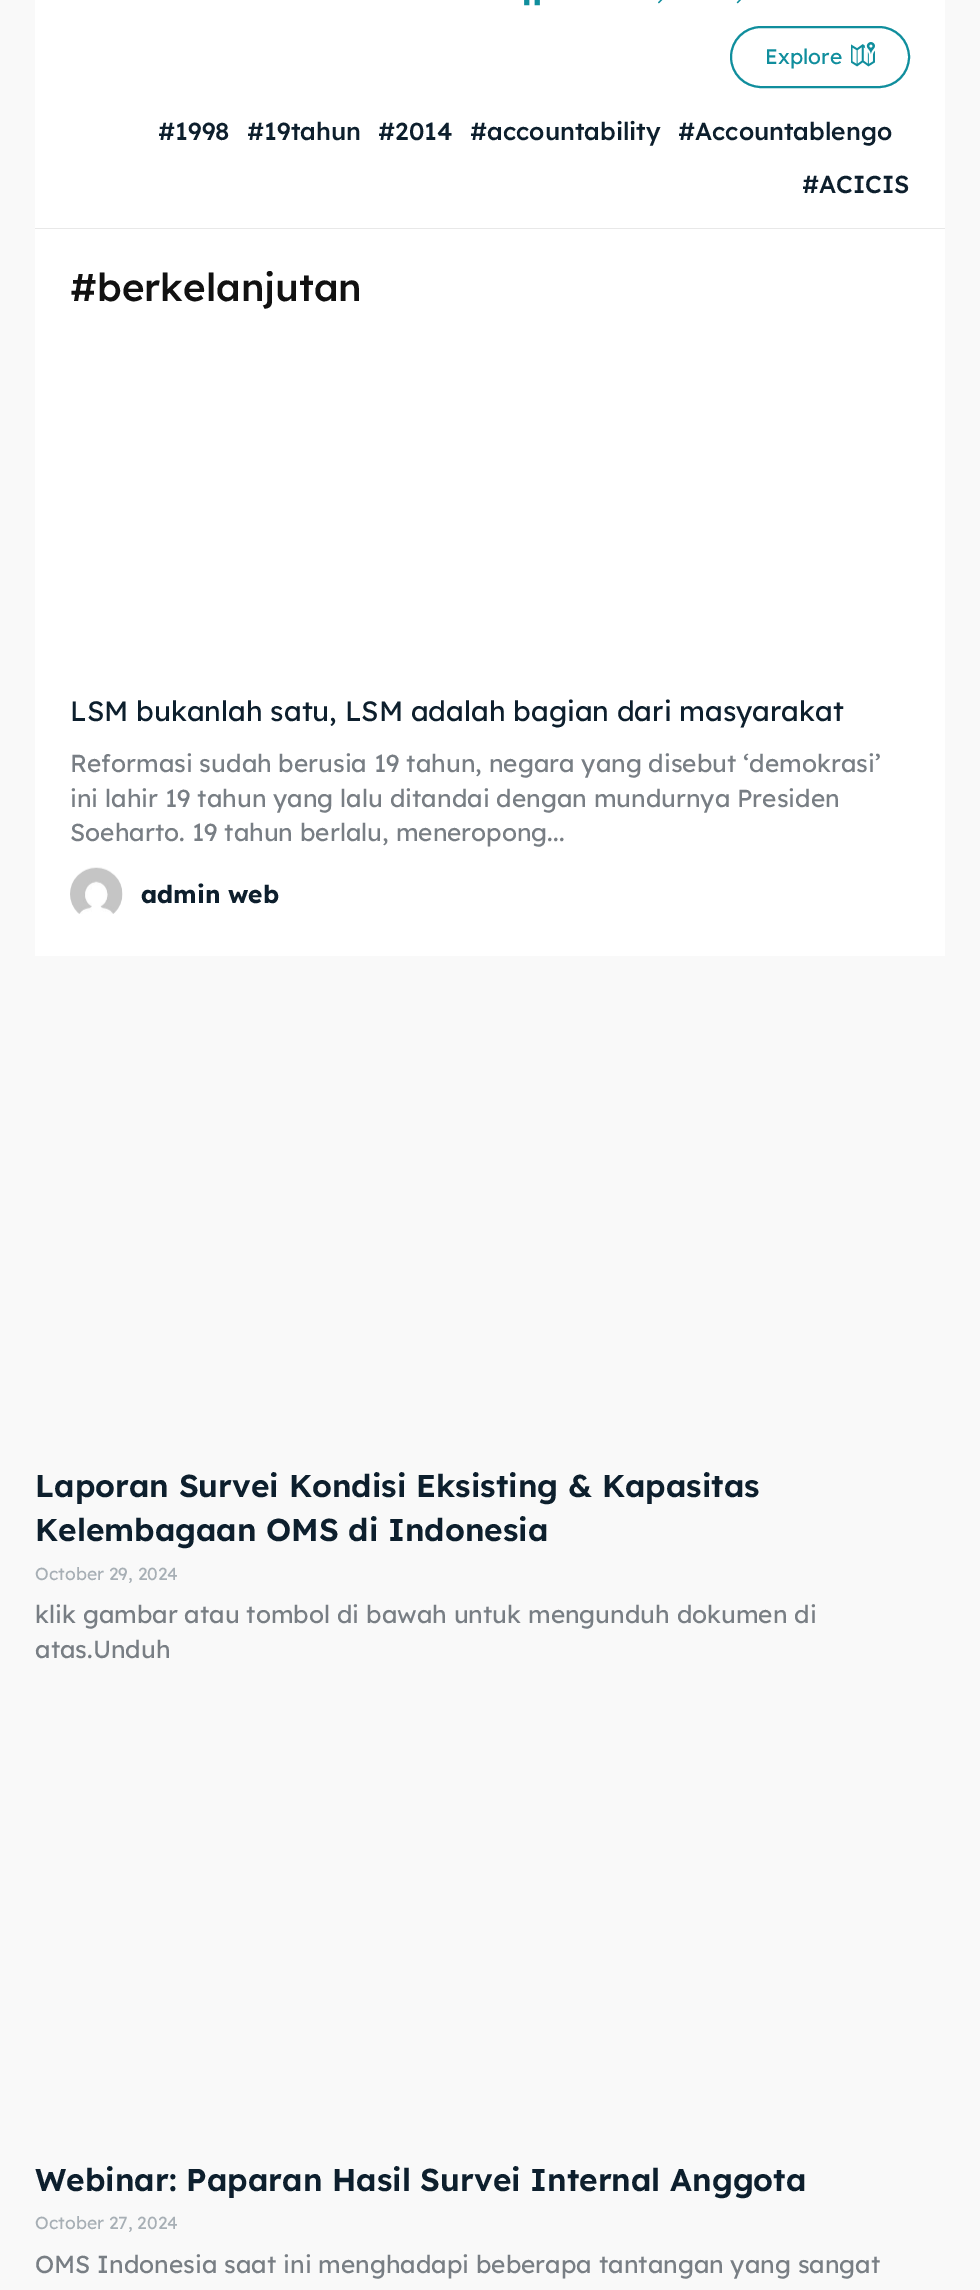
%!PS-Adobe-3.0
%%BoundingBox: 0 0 980 2290
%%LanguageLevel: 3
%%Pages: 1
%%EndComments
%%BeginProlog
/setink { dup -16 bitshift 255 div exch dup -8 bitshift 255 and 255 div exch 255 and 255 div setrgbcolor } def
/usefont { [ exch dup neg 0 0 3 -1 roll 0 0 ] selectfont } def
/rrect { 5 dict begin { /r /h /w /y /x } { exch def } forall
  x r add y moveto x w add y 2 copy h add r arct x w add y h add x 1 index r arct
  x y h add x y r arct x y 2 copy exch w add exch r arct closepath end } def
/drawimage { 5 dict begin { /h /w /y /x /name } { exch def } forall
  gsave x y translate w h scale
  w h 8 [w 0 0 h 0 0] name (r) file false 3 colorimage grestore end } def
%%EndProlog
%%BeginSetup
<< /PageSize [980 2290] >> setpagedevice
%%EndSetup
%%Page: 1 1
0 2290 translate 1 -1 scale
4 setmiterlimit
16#F9F9F9 setink
0 0 980 2290 rectfill
16#E8E8E8 setink
35 228 910 1 rectfill
16#FFFFFF setink
35 0 910 228 rectfill
(img1.raw) 524 0 16 6 drawimage
(img2.raw) 658 0 5 4 drawimage
(img3.raw) 736 0 5 4 drawimage
16#108E9D setink
2 setlinewidth
731 27 178 60 30 rrect stroke
/Lexend-Regular 21 usefont
765 64 moveto (Explore) show
(img4.raw) 851 42 24 25 drawimage
/Lexend-Medium 24.5 usefont
16#0D1F2D setink
[
    [(#1998) 158 140]
    [(#19tahun) 247 140]
    [(#2014) 378 140]
    [(#accountability) 470 140]
    [(#Accountablengo) 678 140]
    [(#ACICIS) 802 193]
] { aload pop moveto show } forall
16#FFFFFF setink
35 229 910 727 rectfill
/Lexend-Medium 38.5 usefont
16#111111 setink
70 301 moveto (#berkelanjutan) show
/Lexend-Regular 28 usefont
16#0D1F2D setink
70 721 moveto (LSM bukanlah satu, LSM adalah bagian dari masyarakat) show
/Lexend-Regular 24.5 usefont
16#787E84 setink
[
    [(Reformasi sudah berusia 19 tahun, negara yang disebut ‘demokrasi’) 70 772]
    [(ini lahir 19 tahun yang lalu ditandai dengan mundurnya Presiden) 70 807]
    [(Soeharto. 19 tahun berlalu, meneropong...) 70 841]
] { aload pop moveto show } forall
(img5.raw) 70 867 53 47 drawimage
/Lexend-Bold 24.5 usefont
16#0D1F2D setink
141 903 moveto (admin web) show
/Lexend-SemiBold 31.5 usefont
35 1497 moveto (Laporan Survei Kondisi Eksisting & Kapasitas) show
35 1541 moveto (Kelembagaan OMS di Indonesia) show
/Lexend-Regular 17.5 usefont
16#A7AFB5 setink
35 1580 moveto (October 29, 2024) show
/Lexend-Regular 24.5 usefont
16#787E84 setink
35 1623 moveto (klik gambar atau tombol di bawah untuk mengunduh dokumen di) show
35 1658 moveto (atas.Unduh) show
/Lexend-SemiBold 31.5 usefont
16#0D1F2D setink
35 2191 moveto (Webinar: Paparan Hasil Survei Internal Anggota) show
/Lexend-Regular 17.5 usefont
16#A7AFB5 setink
35 2229 moveto (October 27, 2024) show
/Lexend-Regular 24.5 usefont
16#787E84 setink
35 2273 moveto (OMS Indonesia saat ini menghadapi beberapa tantangan yang sangat) show
showpage
%%EOF
